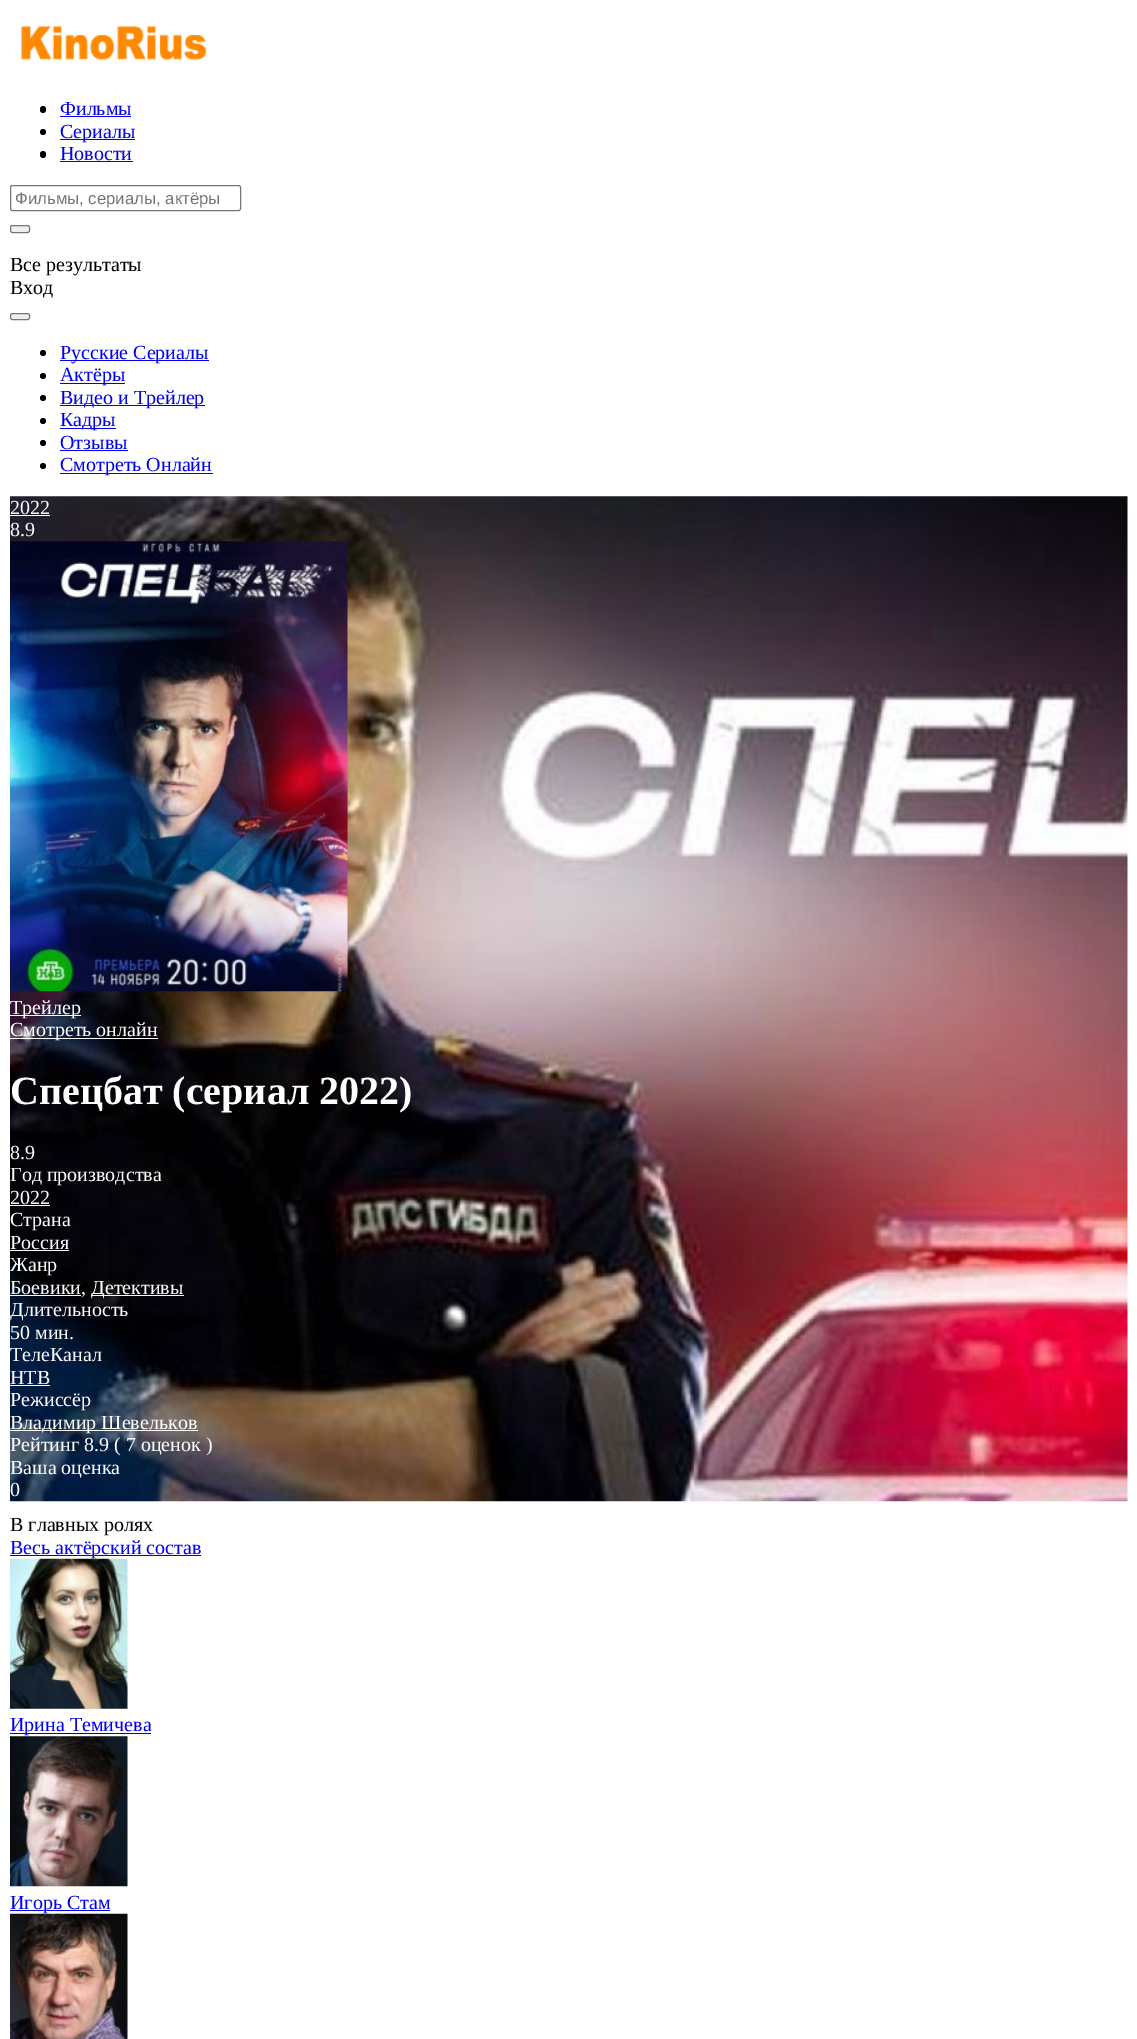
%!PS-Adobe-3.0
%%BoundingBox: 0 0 1137 2039
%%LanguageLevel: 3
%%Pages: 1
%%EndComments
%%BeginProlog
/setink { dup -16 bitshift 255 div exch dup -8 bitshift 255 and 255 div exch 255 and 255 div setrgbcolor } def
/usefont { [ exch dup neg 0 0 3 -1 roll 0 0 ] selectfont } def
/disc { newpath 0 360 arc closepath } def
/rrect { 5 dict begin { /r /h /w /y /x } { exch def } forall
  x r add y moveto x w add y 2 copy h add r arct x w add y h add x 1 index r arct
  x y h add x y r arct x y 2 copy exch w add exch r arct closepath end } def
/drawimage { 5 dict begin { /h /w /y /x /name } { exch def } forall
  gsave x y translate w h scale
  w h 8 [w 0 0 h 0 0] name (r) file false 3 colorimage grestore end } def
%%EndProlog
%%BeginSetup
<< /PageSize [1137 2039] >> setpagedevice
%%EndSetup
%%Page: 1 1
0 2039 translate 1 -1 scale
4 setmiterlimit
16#FFFFFF setink
0 0 1137 2039 rectfill
(img1.raw) 21 26 186 35 drawimage
16#000000 setink
40 106 6 7 3 rrect fill
/LiberationSerif-Regular 20 usefont
16#0000EE setink
60 115 moveto (Фильмы) show
60 116 71 1 rectfill
16#000000 setink
43 132 3 disc fill
16#0000EE setink
60 139 75 1 rectfill
60 138 moveto (Сериалы) show
16#000000 setink
40 151 6 7 3 rrect fill
16#0000EE setink
60 160 moveto (Новости) show
60 161 73 1 rectfill
16#767676 setink
10.5 185.5 230 25 2 rrect stroke
/LiberationSans-Regular 16.75 usefont
16#757575 setink
15 204 moveto (Фильмы, сериалы, актёры) show
16#EFEFEF setink
10.5 225.5 19 7 2 rrect gsave fill grestore
16#767676 setink
stroke
/LiberationSerif-Regular 20 usefont
16#000000 setink
10 271 moveto (Все результаты) show
10 294 moveto (Вход) show
16#EFEFEF setink
10.5 313.5 19 6 2 rrect gsave fill grestore
16#767676 setink
stroke
16#000000 setink
43 353 3 disc fill
16#0000EE setink
60 360 149 1 rectfill
60 359 moveto (Русские Сериалы) show
16#000000 setink
43 376 3 disc fill
16#0000EE setink
60 383 65 1 rectfill
60 381 moveto (Актёры) show
16#000000 setink
43 398 3 disc fill
16#0000EE setink
60 405 145 1 rectfill
60 404 moveto (Видео и Трейлер) show
16#000000 setink
43 421 3 disc fill
16#0000EE setink
60 428 56 1 rectfill
60 426 moveto (Кадры) show
16#000000 setink
43 443 3 disc fill
16#0000EE setink
60 449 moveto (Отзывы) show
60 450 68 1 rectfill
16#000000 setink
43 466 3 disc fill
16#0000EE setink
60 473 153 1 rectfill
60 471 moveto (Смотреть Онлайн) show
(img2.raw) 10 496 1118 1006 drawimage
16#FFFFFF setink
10 514 moveto (2022) show
10 515 40 1 rectfill
10 536 moveto (8.9) show
(img3.raw) 10 541 338 451 drawimage
10 1015 71 1 rectfill
10 1014 moveto (Трейлер) show
10 1038 148 1 rectfill
10 1036 moveto (Смотреть онлайн) show
/LiberationSerif-Bold 40 usefont
10 1104 moveto (Спецбат \(сериал 2022\)) show
/LiberationSerif-Regular 20 usefont
[
    [(8.9) 10 1159]
    [(Год производства) 10 1181]
    [(2022) 10 1204]
] { aload pop moveto show } forall
10 1205 40 1 rectfill
10 1226 moveto (Страна) show
10 1249 moveto (Россия) show
10 1250 59 1 rectfill
10 1271 moveto (Жанр) show
10 1295 71 1 rectfill
10 1294 moveto (Боевики,) show
91 1295 93 1 rectfill
[
    [(Детективы) 91 1294]
    [(Длительность) 10 1316]
    [(50 мин.) 10 1339]
    [(ТелеКанал) 10 1361]
    [(НТВ) 10 1384]
] { aload pop moveto show } forall
10 1385 40 1 rectfill
10 1406 moveto (Режиссёр) show
10 1430 188 1 rectfill
[
    [(Владимир Шевельков) 10 1429]
    [(Рейтинг 8.9 \( 7 оценок \)) 10 1451]
    [(Ваша оценка) 10 1474]
    [(0) 10 1496]
] { aload pop moveto show } forall
16#000000 setink
10 1531 moveto (В главных ролях) show
16#0000EE setink
10 1555 191 1 rectfill
10 1554 moveto (Весь актёрский состав) show
(img4.raw) 10 1558 118 151 drawimage
10 1733 141 1 rectfill
10 1731 moveto (Ирина Темичева) show
(img5.raw) 10 1736 118 151 drawimage
10 1910 100 1 rectfill
10 1909 moveto (Игорь Стам) show
(img6.raw) 10 1913 118 126 drawimage
showpage
%%EOF
